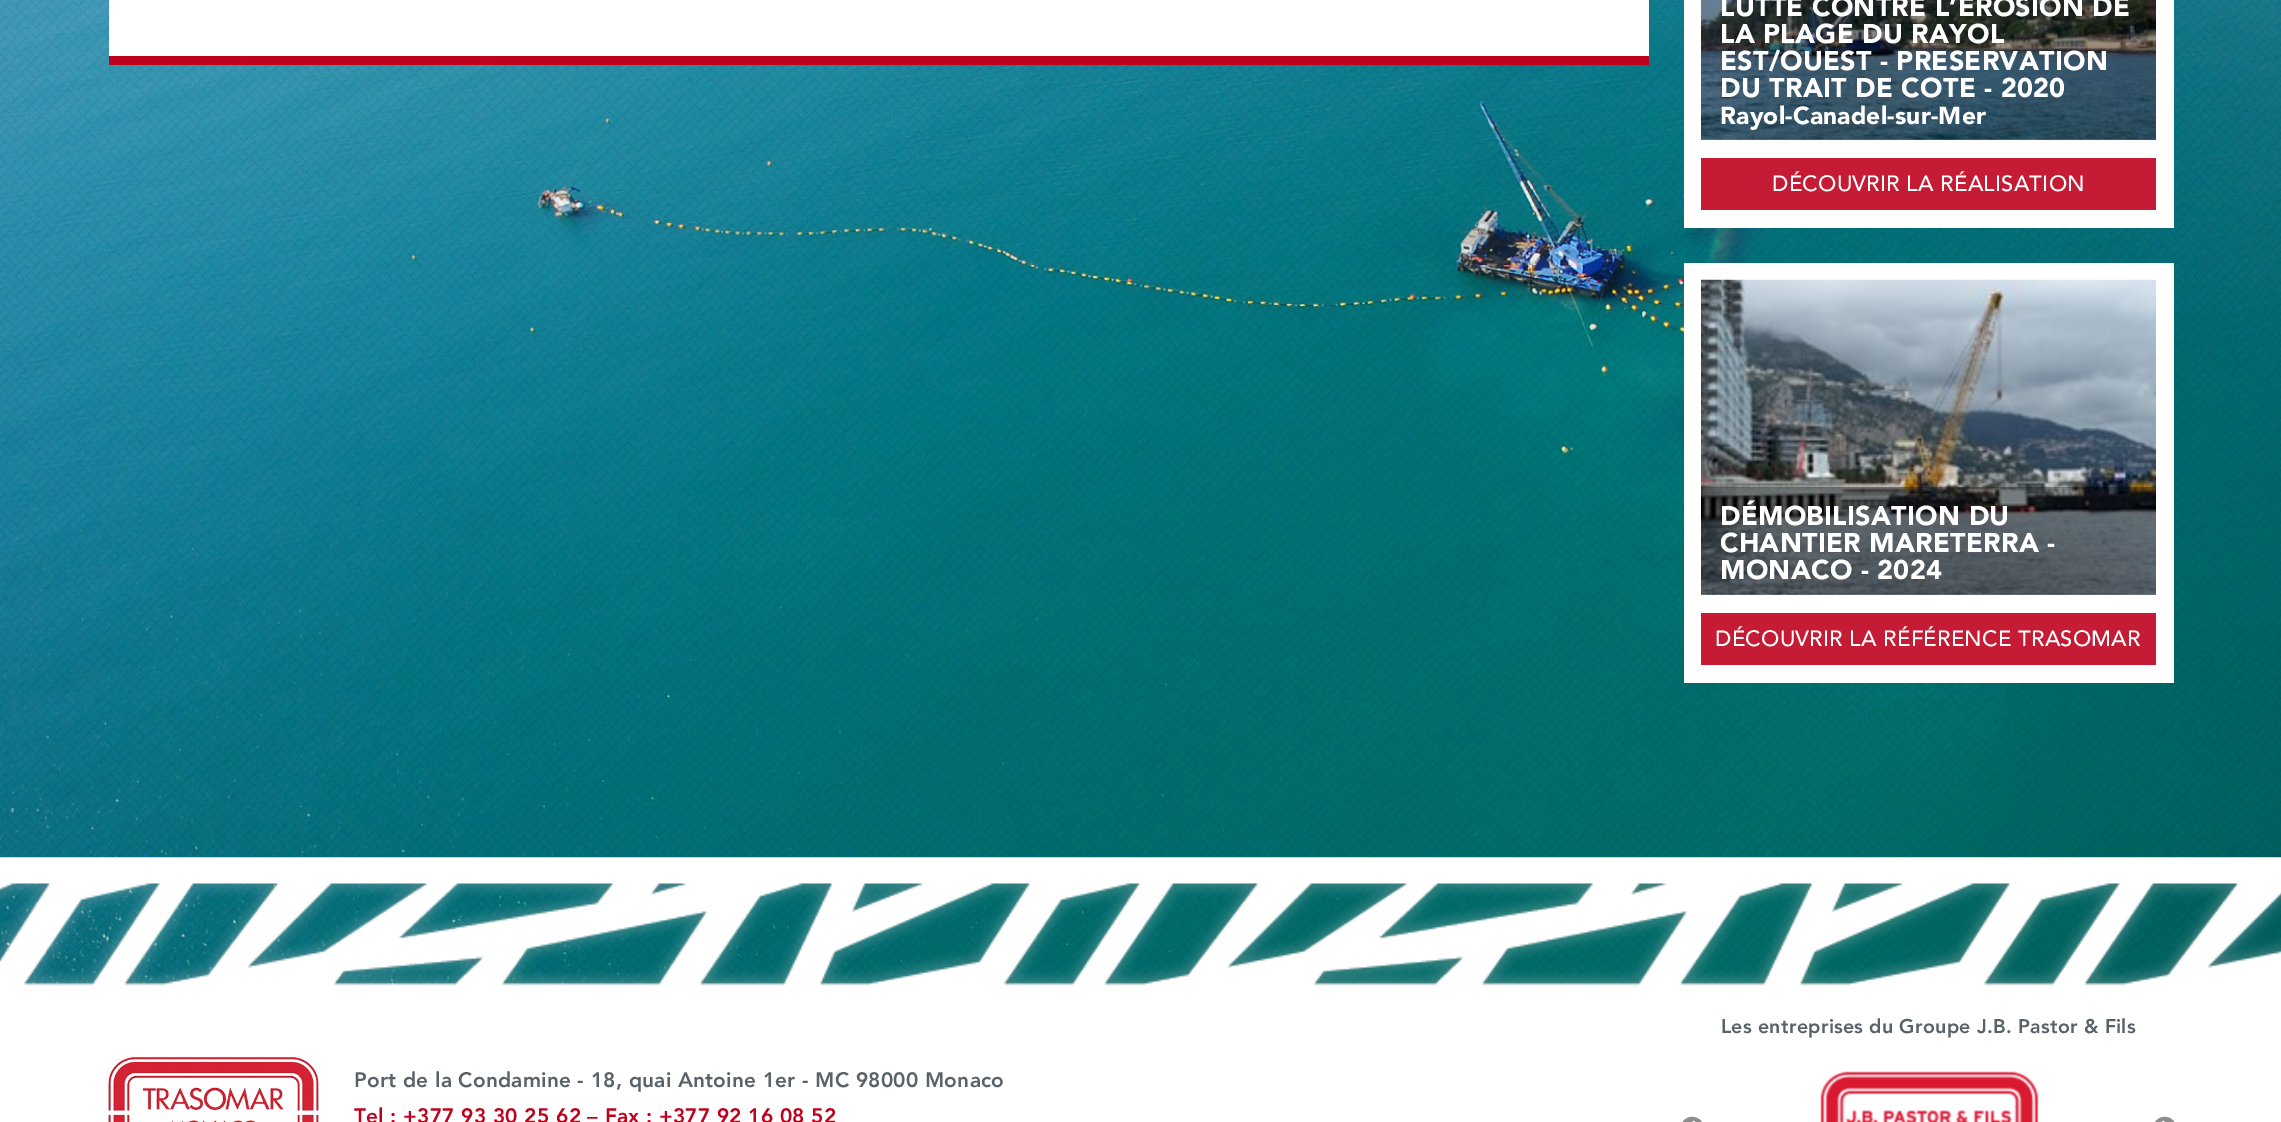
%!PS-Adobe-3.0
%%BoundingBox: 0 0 2281 1122
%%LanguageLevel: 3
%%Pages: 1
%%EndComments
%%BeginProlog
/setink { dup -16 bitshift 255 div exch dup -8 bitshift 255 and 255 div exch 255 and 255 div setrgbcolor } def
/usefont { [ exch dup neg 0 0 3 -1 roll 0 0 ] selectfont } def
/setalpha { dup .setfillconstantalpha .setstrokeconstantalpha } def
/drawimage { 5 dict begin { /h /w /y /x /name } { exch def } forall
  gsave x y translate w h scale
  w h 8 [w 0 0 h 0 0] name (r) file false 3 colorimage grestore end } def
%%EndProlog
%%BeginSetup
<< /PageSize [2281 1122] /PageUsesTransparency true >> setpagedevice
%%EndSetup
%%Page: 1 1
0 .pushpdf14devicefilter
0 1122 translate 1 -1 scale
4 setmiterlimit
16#FFFFFF setink
0 0 2281 1122 rectfill
(img1.raw) 0 0 2281 986 drawimage
[
    [109 0 1540 56 16#FFFFFF]
    [109 56 1540 9 16#BE021D]
    [1684 0 490 228 16#FFFFFF]
] { aload pop setink rectfill } forall
(img2.raw) 1701 0 455 140 drawimage
0.35 setalpha
16#000000 setink
1701 0 455 140 rectfill
/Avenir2-Black 27 usefont
1 setalpha
16#FFFFFF setink
1720 16 moveto 0.25 0 (LUTTE CONTRE L’ÉROSION DE) ashow
1720 43 moveto 0.25 0 (LA PLAGE DU RAYOL) ashow
1720 70 moveto 0.25 0 (EST/OUEST - PRESERVATION) ashow
1720 97 moveto 0.25 0 (DU TRAIT DE COTE - 2020) ashow
/Avenir2-Black 24.5 usefont
1720 124 moveto 0.25 0 (Rayol-Canadel-sur-Mer) ashow
16#C51B34 setink
1701 158 455 52 rectfill
/Avenir-Medium 22 usefont
16#FFFFFF setink
1772 191 moveto 0.25 0 (DÉCOUVRIR LA RÉALISATION) ashow
1684 263 490 420 rectfill
(img3.raw) 1701 279 455 316 drawimage
0.35 setalpha
16#000000 setink
1701 487 455 108 rectfill
/Avenir2-Black 27 usefont
1 setalpha
16#FFFFFF setink
1720 525 moveto 0.25 0 (DÉMOBILISATION DU) ashow
1720 552 moveto 0.25 0 (CHANTIER MARETERRA -) ashow
1720 579 moveto 0.25 0 (MONACO - 2024) ashow
16#C51B34 setink
1701 613 455 52 rectfill
/Avenir-Medium 22 usefont
16#FFFFFF setink
1715 646 moveto 0.25 0 (DÉCOUVRIR LA RÉFÉRENCE TRASOMAR) ashow
(img4.raw) 0 857 2281 265 drawimage
/Avenir-Black 19.6 usefont
16#596269 setink
1721 1033 moveto 0.25 0 (Les entreprises du Groupe J.B. Pastor & Fils) ashow
(img5.raw) 1682 1116 20 6 drawimage
(img6.raw) 1820 1071 219 51 drawimage
(img7.raw) 2155 1116 20 6 drawimage
(img8.raw) 108 1056 211 66 drawimage
/Avenir-Black 20.8 usefont
354 1087 moveto 0.25 0 (Port de la Condamine - 18, quai Antoine 1er - MC 98000 Monaco) ashow
16#BE021D setink
354 1123 moveto 0.25 0 (Tel : +377 93 30 25 62 – Fax : +377 92 16 08 52) ashow
.poppdf14devicefilter showpage
%%EOF
